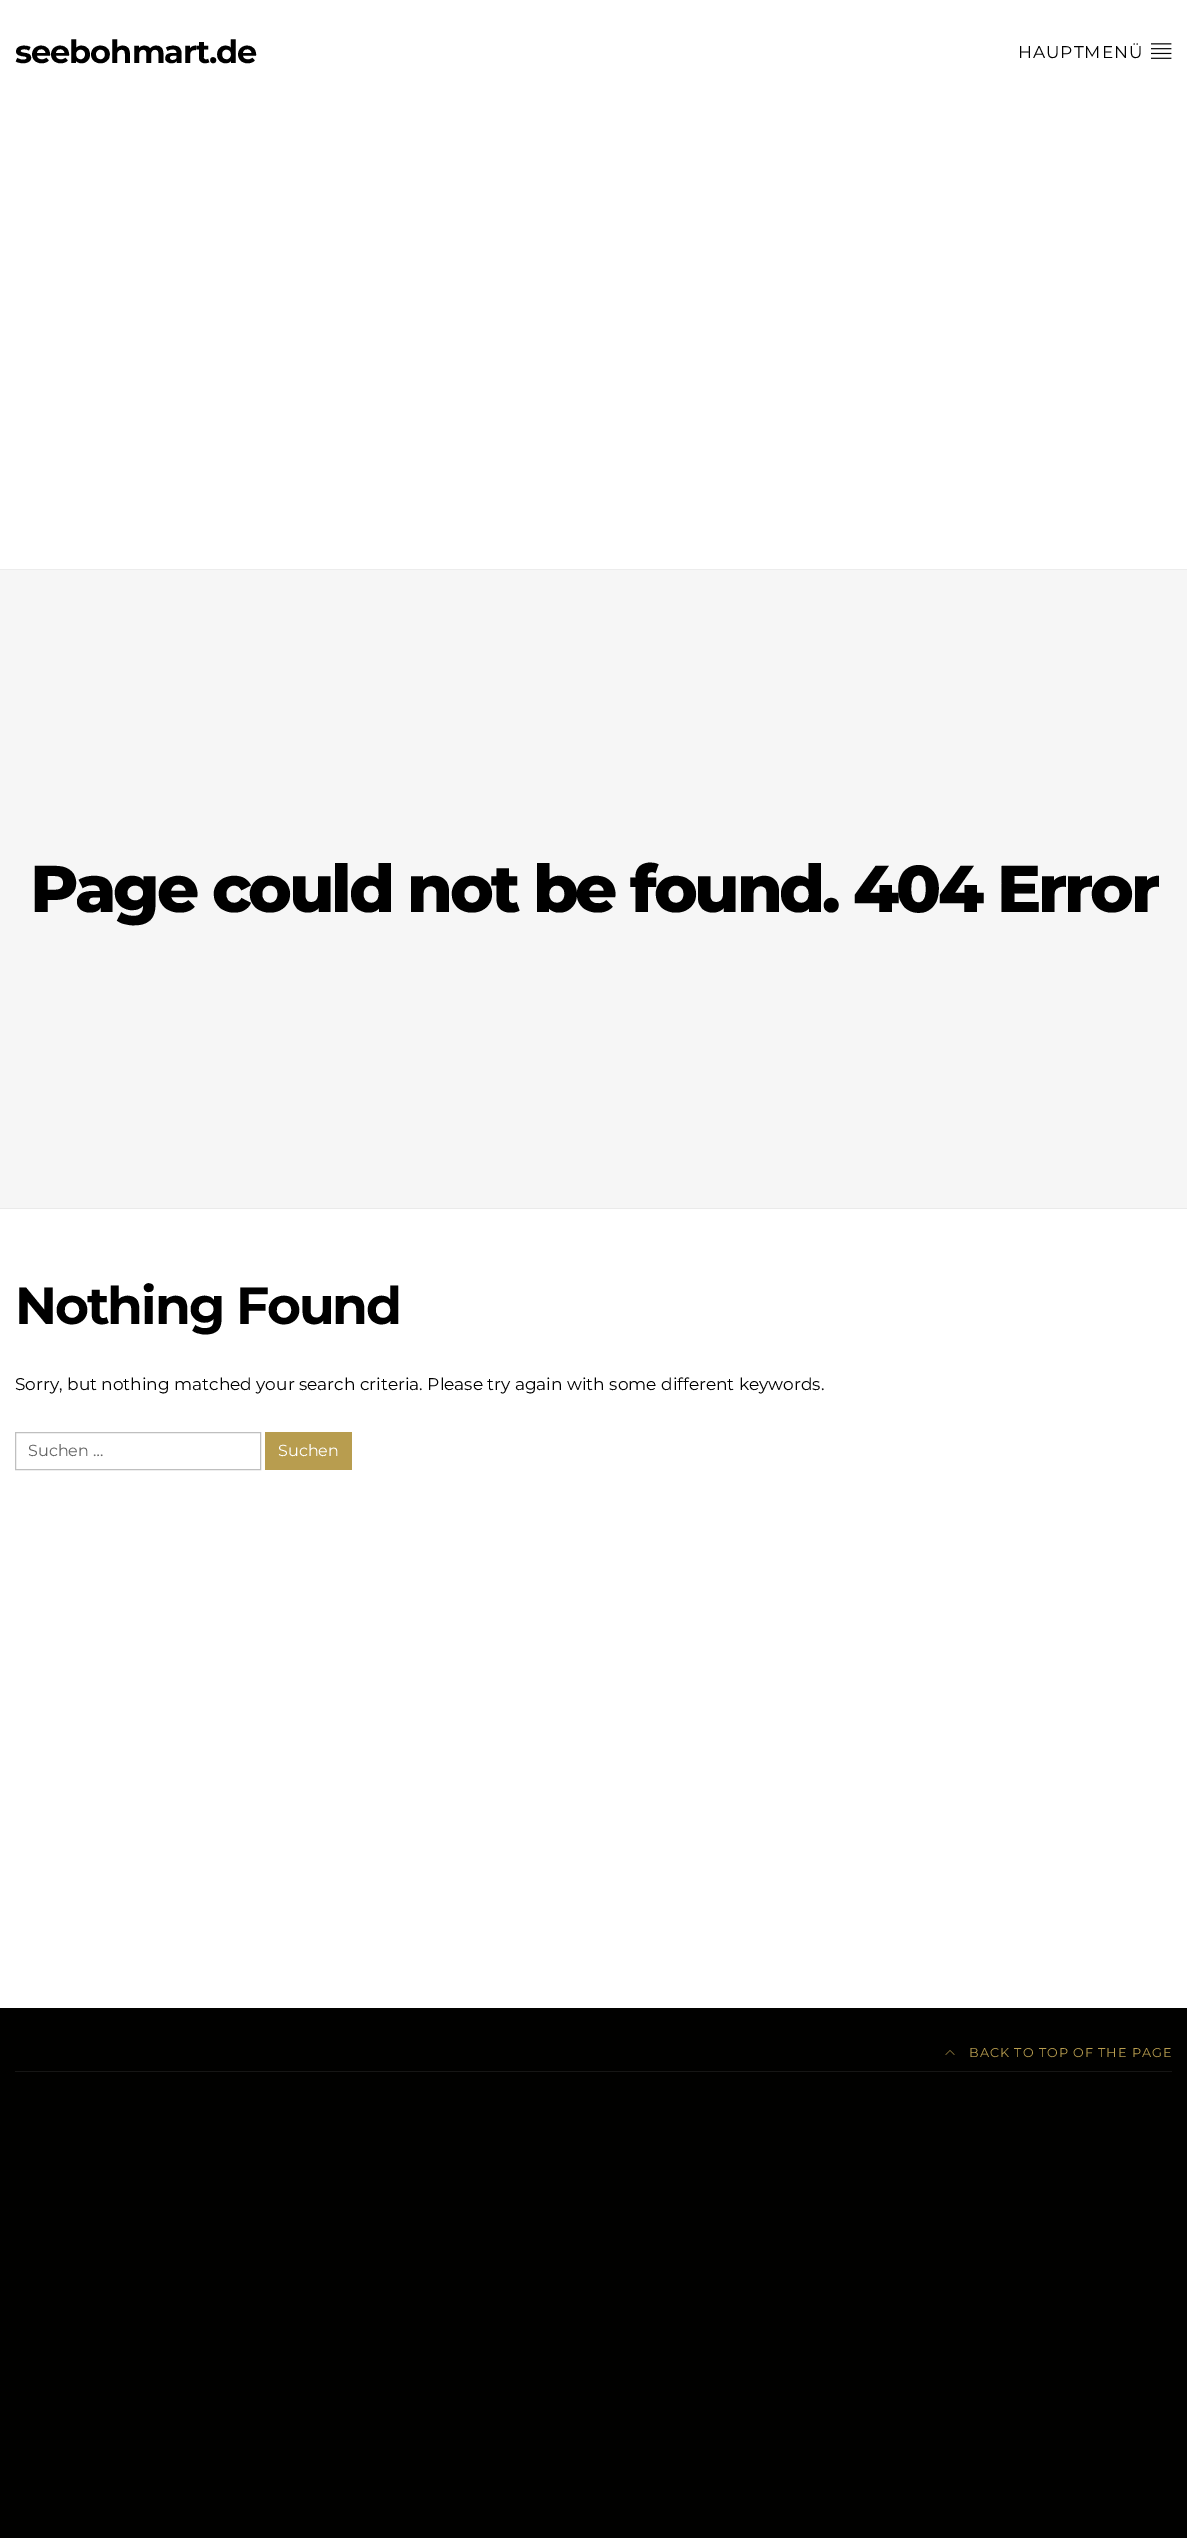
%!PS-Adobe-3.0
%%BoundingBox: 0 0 1187 2538
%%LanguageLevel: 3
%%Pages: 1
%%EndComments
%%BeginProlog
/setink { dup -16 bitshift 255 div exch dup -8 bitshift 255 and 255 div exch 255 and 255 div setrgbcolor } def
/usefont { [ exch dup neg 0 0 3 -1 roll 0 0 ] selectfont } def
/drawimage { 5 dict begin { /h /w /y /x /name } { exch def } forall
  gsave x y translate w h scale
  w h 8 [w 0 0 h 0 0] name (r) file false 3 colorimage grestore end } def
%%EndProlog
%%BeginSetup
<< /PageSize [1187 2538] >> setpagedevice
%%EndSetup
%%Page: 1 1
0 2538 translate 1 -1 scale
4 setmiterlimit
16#FFFFFF setink
0 0 1187 2538 rectfill
/Montserrat-Bold 32 usefont
16#000000 setink
15 63 moveto -1 0 (seebohmart.de) ashow
/Montserrat-Regular 17 usefont
1018 58 moveto 1 0 (HAUPTMENÜ) ashow
(img1.raw) 1151 43 21 16 drawimage
16#ECECEC setink
0 569 1187 1 rectfill
16#F6F6F6 setink
0 570 1187 638 rectfill
/Montserrat-ExtraBold 66 usefont
16#000000 setink
30 912 moveto -3.3 0 (Page could not be found. 404 Error) ashow
16#EAEAEA setink
0 1208 1187 1 rectfill
/Montserrat-Bold 52 usefont
16#000000 setink
15 1324 moveto -2.1 0 (Nothing Found) ashow
/Montserrat-Regular 17 usefont
15 1390 moveto (Sorry, but nothing matched your search criteria. Please try again with some different keywords.) show
16#BFBFBF setink
15.5 1432.5 245 37 rectstroke
/Montserrat-Regular 16 usefont
16#666666 setink
28 1456 moveto (Suchen …) show
16#B89D4F setink
265 1432 87 38 rectfill
16#FFFFFF setink
278 1456 moveto (Suchen) show
16#010100 setink
0 2008 1187 530 rectfill
(img2.raw) 945 2050 10 5 drawimage
/Montserrat-Regular 12.75 usefont
16#B89D4F setink
969 2057 moveto 1 0 (BACK TO TOP OF THE PAGE) ashow
16#161615 setink
15 2071 1157 1 rectfill
showpage
%%EOF
